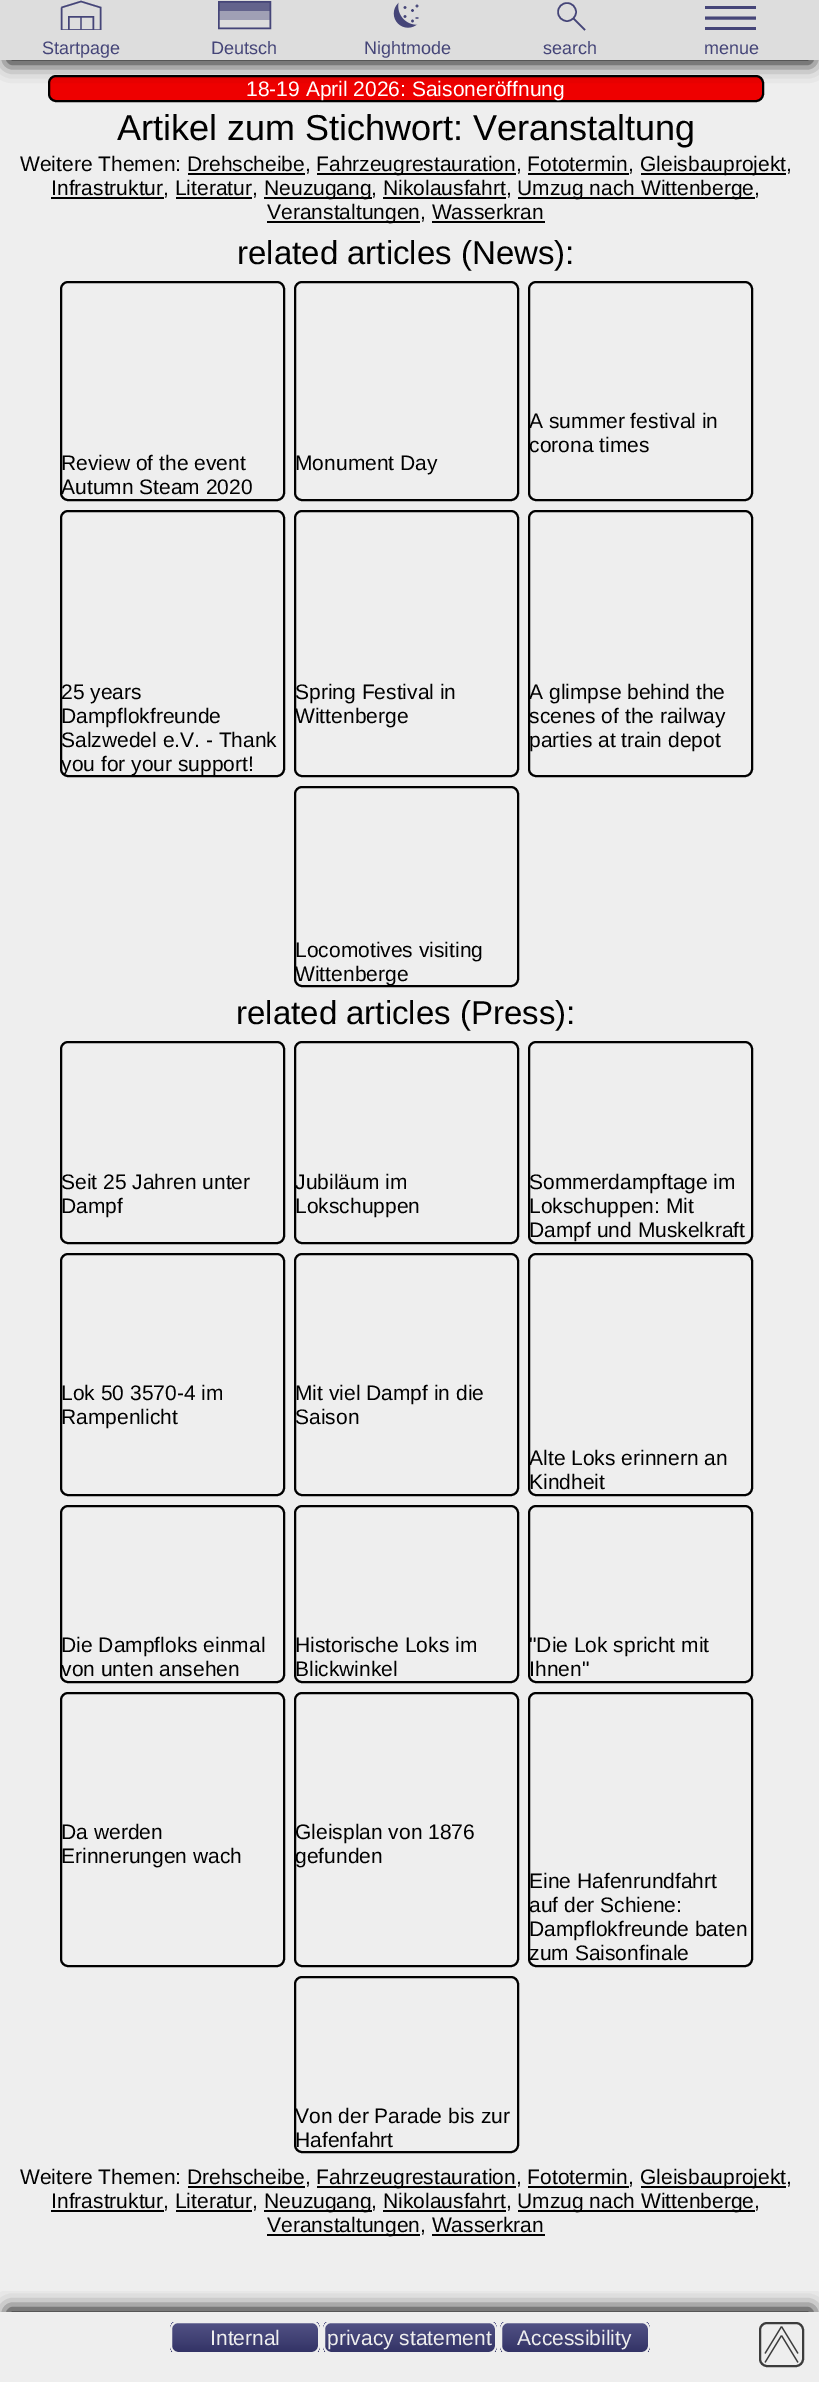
%!PS-Adobe-3.0
%%BoundingBox: 0 0 819 2382
%%LanguageLevel: 3
%%Pages: 1
%%EndComments
%%BeginProlog
/setink { dup -16 bitshift 255 div exch dup -8 bitshift 255 and 255 div exch 255 and 255 div setrgbcolor } def
/usefont { [ exch dup neg 0 0 3 -1 roll 0 0 ] selectfont } def
/setalpha { dup .setfillconstantalpha .setstrokeconstantalpha } def
/disc { newpath 0 360 arc closepath } def
/rrect { 5 dict begin { /r /h /w /y /x } { exch def } forall
  x r add y moveto x w add y 2 copy h add r arct x w add y h add x 1 index r arct
  x y h add x y r arct x y 2 copy exch w add exch r arct closepath end } def
/softshadow { 12 dict begin { /a /b /q /h /w /y /x } { exch def } forall gsave /was 0 def
  9 -2 -9 { dup b mul 4 div /e exch def 1 sub .425 mul 2.718 exch exp 1 add a .99 .min exch div /now exch def
    1 1 now sub 1 was sub div sub setalpha /was now def
    w h .min e 2 mul add 0 gt { x e sub y e sub w e 2 mul add h e 2 mul add
      q e add b .6 mul add w h .min 2 div e add .min 0 .max rrect fill } if } for grestore end } def
/drawimage { 5 dict begin { /h /w /y /x /name } { exch def } forall
  gsave x y translate w h scale
  w h 8 [w 0 0 h 0 0] name (r) file false 3 colorimage grestore end } def
%%EndProlog
%%BeginSetup
<< /PageSize [819 2382] /PageUsesTransparency true >> setpagedevice
%%EndSetup
%%Page: 1 1
0 .pushpdf14devicefilter
0 2382 translate 1 -1 scale
4 setmiterlimit
16#EEEEEE setink
0 0 819 2382 rectfill
16#EE0000 setink
49 76 714 25 7 rrect gsave fill grestore
16#000000 setink
2 setlinewidth
stroke
8 18 804 45 0 9 1 softshadow
16#DDDDDD setink
0 0 819 60 rectfill
gsave
59 0 45 30 rectclip
16#454578 setink
1.5 setlinewidth
61.5 7.5 moveto 81 1.5 lineto 100.5 7.5 lineto 100.5 30 lineto 61.5 30 lineto 61.5 7.5 lineto stroke
68.75 16.75 24.5 13.5 rectstroke
grestore
0.75 setalpha
16#454578 setink
80 17 2 13 rectfill
/LiberationSans-Regular 18 usefont
1 setalpha
42 54 moveto (Startpage) show
1.5 setlinewidth
218.75 1.75 51.5 26.5 rectstroke
0.8 setalpha
219 2 51 9 rectfill
0.4 setalpha
219 11 51 9 rectfill
1 setalpha
211 54 moveto (Deutsch) show
(img1.raw) 393 2 26 26 drawimage
364 54 moveto (Nightmode) show
567 12 9 disc stroke
573 18 moveto 585 30 lineto stroke
543 54 moveto (search) show
705 6 51 3 rectfill
3 setlinewidth
705 18 moveto 756 18 lineto stroke
705 27 51 3 rectfill
704 54 moveto (menue) show
/LiberationSans-Regular 21 usefont
16#FFFFFF setink
246 96 moveto (18-19 April 2026: Saisoneröffnung) show
/LiberationSans-Regular 36 usefont
16#000000 setink
117 140 moveto (Artikel zum Stichwort: Veranstaltung) show
/LiberationSans-Regular 21 usefont
20 171 moveto (Weitere Themen: Drehscheibe,) show
317 173 199 2 rectfill
316 171 moveto (Fahrzeugrestauration, Fototermin,) show
641 173 145 2 rectfill
640 171 moveto (Gleisbauprojekt,) show
[
    [188 173 117 2 16#000000]
    [528 173 101 2 16#000000]
    [51 197 113 2 16#000000]
] { aload pop setink rectfill } forall
51 195 moveto (Infrastruktur, Literatur,) show
264 197 108 2 rectfill
264 195 moveto (Neuzugang, Nikolausfahrt,) show
518 197 237 2 rectfill
517 195 moveto (Umzug nach Wittenberge,) show
[
    [176 197 76 2 16#000000]
    [383 197 123 2 16#000000]
    [267 221 153 2 16#000000]
] { aload pop setink rectfill } forall
267 219 moveto (Veranstaltungen, Wasserkran) show
432 221 113 2 rectfill
/LiberationSans-Regular 33 usefont
237 264 moveto (related articles \(News\):) show
2 setlinewidth
529 282 223 218 7 rrect stroke
gsave
530 282 222 218 6 rrect clip newpath
/LiberationSans-Regular 21 usefont
529 428 moveto (A summer festival in) show
529 452 moveto (corona times) show
grestore
61 282 223 218 7 rrect stroke
/LiberationSans-Regular 21 usefont
61 470 moveto (Review of the event) show
gsave
62 282 222 218 6 rrect clip newpath
61 494 moveto (Autumn Steam 2020) show
grestore
295 282 223 218 7 rrect stroke
295 470 moveto (Monument Day) show
61 511 223 265 7 rrect stroke
[
    [(25 years) 61 699]
    [(Dampflokfreunde) 61 723]
    [(Salzwedel e.V. - Thank) 61 747]
] { aload pop moveto show } forall
gsave
62 512 222 264 6 rrect clip newpath
61 771 moveto (you for your support!) show
grestore
295 511 223 265 7 rrect stroke
295 699 moveto (Spring Festival in) show
gsave
296 512 222 264 6 rrect clip newpath
295 723 moveto (Wittenberge) show
grestore
529 511 223 265 7 rrect stroke
gsave
530 512 222 264 6 rrect clip newpath
529 699 moveto (A glimpse behind the) show
529 723 moveto (scenes of the railway) show
grestore
529 747 moveto (parties at train depot) show
295 787 223 199 7 rrect stroke
295 957 moveto (Locomotives visiting) show
gsave
296 788 222 198 6 rrect clip newpath
295 981 moveto (Wittenberge) show
grestore
/LiberationSans-Regular 33 usefont
236 1024 moveto (related articles \(Press\):) show
61 1042 223 201 7 rrect stroke
/LiberationSans-Regular 21 usefont
61 1189 moveto (Seit 25 Jahren unter) show
61 1213 moveto (Dampf) show
295 1042 223 201 7 rrect stroke
gsave
296 1043 222 199 6 rrect clip newpath
295 1189 moveto (Jubiläum im) show
grestore
295 1213 moveto (Lokschuppen) show
529 1042 223 201 7 rrect stroke
[
    [(Sommerdampftage im) 529 1189]
    [(Lokschuppen: Mit) 529 1213]
    [(Dampf und Muskelkraft) 529 1237]
] { aload pop moveto show } forall
61 1254 223 241 7 rrect stroke
61 1400 moveto (Lok 50 3570-4 im) show
61 1424 moveto (Rampenlicht) show
295 1254 223 241 7 rrect stroke
295 1400 moveto (Mit viel Dampf in die) show
295 1424 moveto (Saison) show
529 1254 223 241 7 rrect stroke
gsave
530 1254 222 240 6 rrect clip newpath
529 1465 moveto (Alte Loks erinnern an) show
grestore
529 1489 moveto (Kindheit) show
61 1506 223 176 7 rrect stroke
61 1652 moveto (Die Dampfloks einmal) show
gsave
62 1506 222 176 6 rrect clip newpath
61 1676 moveto (von unten ansehen) show
grestore
295 1506 223 176 7 rrect stroke
295 1652 moveto (Historische Loks im) show
295 1676 moveto (Blickwinkel) show
529 1506 223 176 7 rrect stroke
gsave
530 1506 222 176 6 rrect clip newpath
529 1652 moveto ("Die Lok spricht mit) show
grestore
529 1676 moveto (Ihnen") show
61 1693 223 273 7 rrect stroke
61 1839 moveto (Da werden) show
61 1863 moveto (Erinnerungen wach) show
295 1693 223 273 7 rrect stroke
gsave
296 1694 222 271 6 rrect clip newpath
295 1839 moveto (Gleisplan von 1876) show
295 1863 moveto (gefunden) show
grestore
529 1693 223 273 7 rrect stroke
529 1888 moveto (Eine Hafenrundfahrt) show
gsave
530 1694 222 271 6 rrect clip newpath
529 1912 moveto (auf der Schiene:) show
grestore
529 1936 moveto (Dampflokfreunde baten) show
529 1960 moveto (zum Saisonfinale) show
295 1977 223 175 7 rrect stroke
gsave
296 1977 222 174 6 rrect clip newpath
295 2123 moveto (Von der Parade bis zur) show
grestore
295 2147 moveto (Hafenfahrt) show
20 2184 moveto (Weitere Themen: Drehscheibe,) show
317 2186 199 2 rectfill
316 2184 moveto (Fahrzeugrestauration, Fototermin,) show
641 2186 145 2 rectfill
640 2184 moveto (Gleisbauprojekt,) show
[
    [188 2186 117 2 16#000000]
    [528 2186 101 2 16#000000]
    [51 2210 113 2 16#000000]
] { aload pop setink rectfill } forall
51 2208 moveto (Infrastruktur, Literatur,) show
264 2210 108 2 rectfill
264 2208 moveto (Neuzugang, Nikolausfahrt,) show
518 2210 237 2 rectfill
517 2208 moveto (Umzug nach Wittenberge,) show
[
    [176 2210 76 2 16#000000]
    [383 2210 123 2 16#000000]
    [267 2234 153 2 16#000000]
] { aload pop setink rectfill } forall
267 2232 moveto (Veranstaltungen, Wasserkran) show
432 2234 113 2 rectfill
gsave
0 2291 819 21 rectclip
8 2309 804 55 0 9 1 softshadow
grestore
gsave
170 2321 150 33 8 rrect clip newpath
gsave 170 2322 moveto 320 2322 lineto 320 2352 lineto 170 2352 lineto closepath clip newpath
<< /ShadingType 2 /ColorSpace /DeviceRGB /Coords [245 2322 245 2352] /Extend [true true] /Function << /FunctionType 2 /Domain [0 1] /C0 [0.325 0.325 0.525] /C1 [0.2 0.2 0.4] /N 1 >> >> shfill grestore
grestore
16#EEEEEE setink
171 2322 148 31 7 rrect stroke
210 2345 moveto (Internal) show
gsave
323 2321 174 33 8 rrect clip newpath
gsave 323 2322 moveto 497 2322 lineto 497 2352 lineto 323 2352 lineto closepath clip newpath
<< /ShadingType 2 /ColorSpace /DeviceRGB /Coords [410 2322 410 2352] /Extend [true true] /Function << /FunctionType 2 /Domain [0 1] /C0 [0.325 0.325 0.525] /C1 [0.2 0.2 0.4] /N 1 >> >> shfill grestore
grestore
324 2322 172 31 7 rrect stroke
327 2345 moveto (privacy statement) show
gsave
500 2321 150 33 8 rrect clip newpath
gsave 500 2322 moveto 650 2322 lineto 650 2352 lineto 500 2352 lineto closepath clip newpath
<< /ShadingType 2 /ColorSpace /DeviceRGB /Coords [575 2322 575 2352] /Extend [true true] /Function << /FunctionType 2 /Domain [0 1] /C0 [0.325 0.325 0.525] /C1 [0.2 0.2 0.4] /N 1 >> >> shfill grestore
grestore
501 2322 148 31 7 rrect stroke
517 2345 moveto (Accessibility) show
16#3C3C3C setink
760 2323 43 43 7 rrect stroke
(img2.raw) 764 2326 35 37 drawimage
.poppdf14devicefilter showpage
%%EOF
